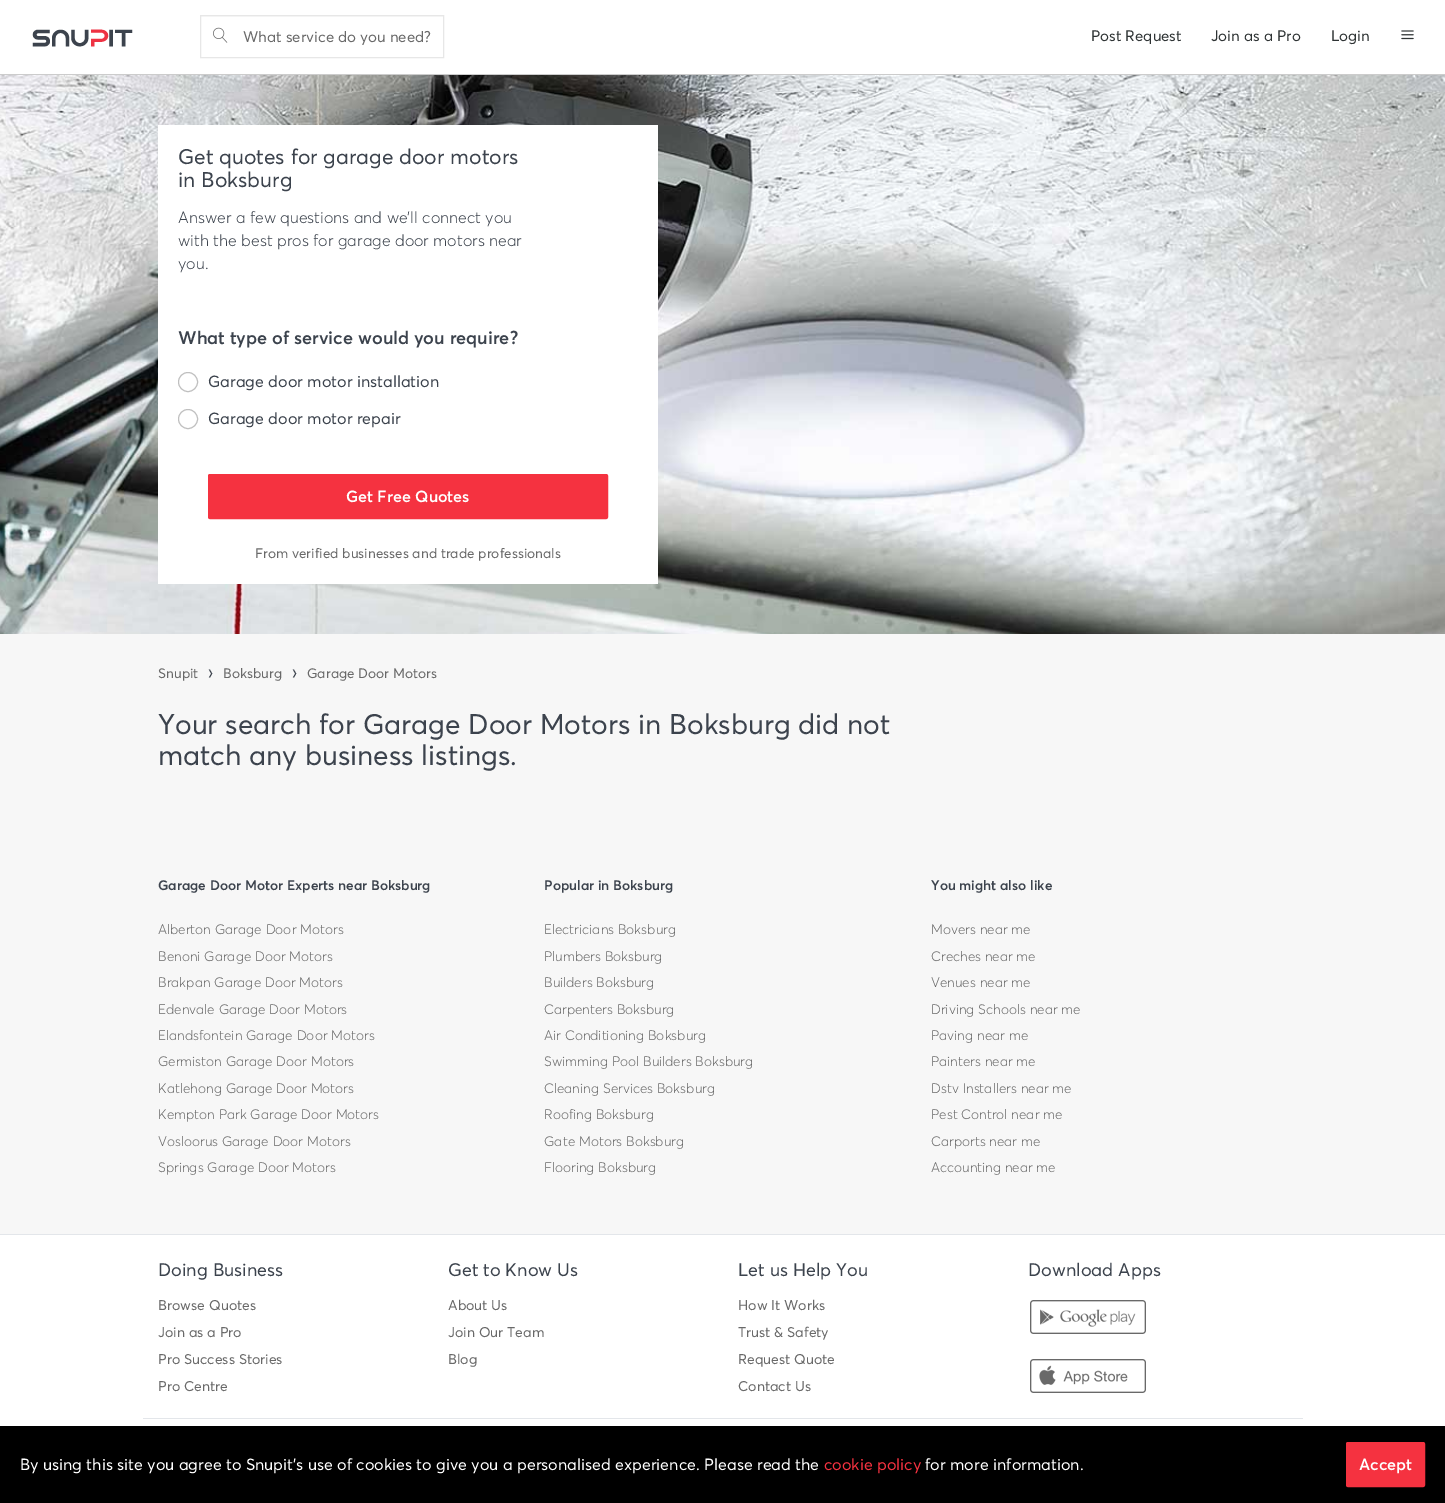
%!PS-Adobe-3.0
%%BoundingBox: 0 0 1445 1503
%%LanguageLevel: 3
%%Pages: 1
%%EndComments
%%BeginProlog
/setink { dup -16 bitshift 255 div exch dup -8 bitshift 255 and 255 div exch 255 and 255 div setrgbcolor } def
/usefont { [ exch dup neg 0 0 3 -1 roll 0 0 ] selectfont } def
/disc { newpath 0 360 arc closepath } def
/rrect { 5 dict begin { /r /h /w /y /x } { exch def } forall
  x r add y moveto x w add y 2 copy h add r arct x w add y h add x 1 index r arct
  x y h add x y r arct x y 2 copy exch w add exch r arct closepath end } def
/drawimage { 5 dict begin { /h /w /y /x /name } { exch def } forall
  gsave x y translate w h scale
  w h 8 [w 0 0 h 0 0] name (r) file false 3 colorimage grestore end } def
%%EndProlog
%%BeginSetup
<< /PageSize [1445 1503] >> setpagedevice
%%EndSetup
%%Page: 1 1
0 1503 translate 1 -1 scale
4 setmiterlimit
16#F7F7F7 setink
0 0 1445 1503 rectfill
16#FFFFFF setink
0 0 1445 74 rectfill
16#CCCCCC setink
0 74 1445 1 rectfill
(img1.raw) 32 29 101 18 drawimage
16#F9F9F9 setink
201 16 242 1 rectfill
16#E7E7E7 setink
200.5 15.5 243 42 rectstroke
(img2.raw) 213 27 15 16 drawimage
/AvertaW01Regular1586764-Regular 15 usefont
16#696969 setink
243 42 moveto (What service do you need?) show
16#2E3334 setink
[
    [(Post Request) 1091 41]
    [(Join as a Pro) 1211 41]
    [(Login) 1331 41]
] { aload pop moveto show } forall
(img3.raw) 1401 30 13 10 drawimage
(img4.raw) 0 75 1445 559 drawimage
16#FFFFFF setink
158 125 500 459 rectfill
/AvertaW01Regular1586764-Regular 21 usefont
16#3C434D setink
178 164 moveto (Get quotes for garage door motors) show
178 187 moveto (in Boksburg) show
/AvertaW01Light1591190-Light 16 usefont
[
    [(Answer a few questions and we'll connect you) 178 223]
    [(with the best pros for garage door motors near) 178 246]
    [(you.) 178 269]
] { aload pop moveto show } forall
/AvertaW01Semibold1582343-SemiBold 18 usefont
178 344 moveto (What type of service would you require?) show
16#C0C0C0 setink
188 382 9.5 disc stroke
/AvertaW01Regular1586764-Regular 16 usefont
16#3C434D setink
208 387 moveto (Garage door motor installation) show
16#C0C0C0 setink
188 419 9.5 disc stroke
16#3C434D setink
208 424 moveto (Garage door motor repair) show
16#F53240 setink
208.5 474.5 399 44 1.5 rrect gsave fill grestore
stroke
/AvertaW01Semibold1582343-SemiBold 16 usefont
16#FFFFFF setink
346 502 moveto (Get Free Quotes) show
/AvertaW01Regular1586764-Regular 13.6 usefont
16#696969 setink
255 558 moveto (From verified businesses and trade professionals) show
158 678 moveto (Snupit) show
/AvertaW01Regular1586764-Regular 18 usefont
16#3C434D setink
208 678 moveto (›) show
/AvertaW01Regular1586764-Regular 13.6 usefont
16#696969 setink
223 678 moveto (Boksburg) show
/AvertaW01Regular1586764-Regular 18 usefont
16#3C434D setink
292 678 moveto (›) show
/AvertaW01Regular1586764-Regular 13.6 usefont
16#696969 setink
307 678 moveto (Garage Door Motors) show
/AvertaW01Regular1586764-Regular 28 usefont
16#3C434D setink
158 734 moveto (Your search for Garage Door Motors in Boksburg did not) show
158 765 moveto (match any business listings.) show
/AvertaW01Semibold1582343-SemiBold 13.6 usefont
158 890 moveto (Garage Door Motor Experts near Boksburg) show
/AvertaW01Light1591190-Light 13.6 usefont
16#696969 setink
[
    [(Alberton Garage Door Motors) 158 934]
    [(Benoni Garage Door Motors) 158 961]
    [(Brakpan Garage Door Motors) 158 987]
    [(Edenvale Garage Door Motors) 158 1014]
    [(Elandsfontein Garage Door Motors) 158 1040]
    [(Germiston Garage Door Motors) 158 1066]
    [(Katlehong Garage Door Motors) 158 1093]
    [(Kempton Park Garage Door Motors) 158 1119]
    [(Vosloorus Garage Door Motors) 158 1146]
    [(Springs Garage Door Motors) 158 1172]
] { aload pop moveto show } forall
/AvertaW01Semibold1582343-SemiBold 13.6 usefont
16#3C434D setink
544 890 moveto (Popular in Boksburg) show
/AvertaW01Light1591190-Light 13.6 usefont
16#696969 setink
[
    [(Electricians Boksburg) 544 934]
    [(Plumbers Boksburg) 544 961]
    [(Builders Boksburg) 544 987]
    [(Carpenters Boksburg) 544 1014]
    [(Air Conditioning Boksburg) 544 1040]
    [(Swimming Pool Builders Boksburg) 544 1066]
    [(Cleaning Services Boksburg) 544 1093]
    [(Roofing Boksburg) 544 1119]
    [(Gate Motors Boksburg) 544 1146]
    [(Flooring Boksburg) 544 1172]
] { aload pop moveto show } forall
/AvertaW01Semibold1582343-SemiBold 13.6 usefont
16#3C434D setink
931 890 moveto (You might also like) show
/AvertaW01Light1591190-Light 13.6 usefont
16#696969 setink
[
    [(Movers near me) 931 934]
    [(Creches near me) 931 961]
    [(Venues near me) 931 987]
    [(Driving Schools near me) 931 1014]
    [(Paving near me) 931 1040]
    [(Painters near me) 931 1066]
    [(Dstv Installers near me) 931 1093]
    [(Pest Control near me) 931 1119]
    [(Carports near me) 931 1146]
    [(Accounting near me) 931 1172]
] { aload pop moveto show } forall
16#FFFFFF setink
0 1235 1445 191 rectfill
16#E3E6EA setink
0 1234 1445 1 rectfill
/AvertaW01Regular1586764-Regular 18 usefont
16#3C434D setink
158 1276 moveto (Doing Business) show
/AvertaW01Regular1586764-Regular 14 usefont
16#696969 setink
[
    [(Browse Quotes) 158 1310]
    [(Join as a Pro) 158 1337]
    [(Pro Success Stories) 158 1364]
    [(Pro Centre) 158 1391]
] { aload pop moveto show } forall
/AvertaW01Regular1586764-Regular 18 usefont
16#3C434D setink
448 1276 moveto (Get to Know Us) show
/AvertaW01Regular1586764-Regular 14 usefont
16#696969 setink
[
    [(About Us) 448 1310]
    [(Join Our Team) 448 1337]
    [(Blog) 448 1364]
] { aload pop moveto show } forall
/AvertaW01Regular1586764-Regular 18 usefont
16#3C434D setink
738 1276 moveto (Let us Help You) show
/AvertaW01Regular1586764-Regular 14 usefont
16#696969 setink
[
    [(How It Works) 738 1310]
    [(Trust & Safety) 738 1337]
    [(Request Quote) 738 1364]
    [(Contact Us) 738 1391]
] { aload pop moveto show } forall
/AvertaW01Regular1586764-Regular 18 usefont
16#3C434D setink
1028 1276 moveto (Download Apps) show
(img5.raw) 1030 1300 116 34 drawimage
(img6.raw) 1030 1359 116 34 drawimage
16#E3E6EA setink
143 1418 1160 1 rectfill
16#000000 setink
0 1426 1445 77 rectfill
/AvertaW01Regular1586764-Regular 16 usefont
16#FFFFFF setink
20 1470 moveto (By using this site you agree to Snupit's use of cookies to give you a personalised experience. Please read the) show
16#F53240 setink
824 1470 moveto (cookie policy) show
16#FFFFFF setink
925 1470 moveto (for more information.) show
16#F53240 setink
1346.5 1442.5 78 44 1.5 rrect gsave fill grestore
stroke
/AvertaW01Semibold1582343-SemiBold 16 usefont
16#FFFFFF setink
1359 1470 moveto (Accept) show
showpage
%%EOF
